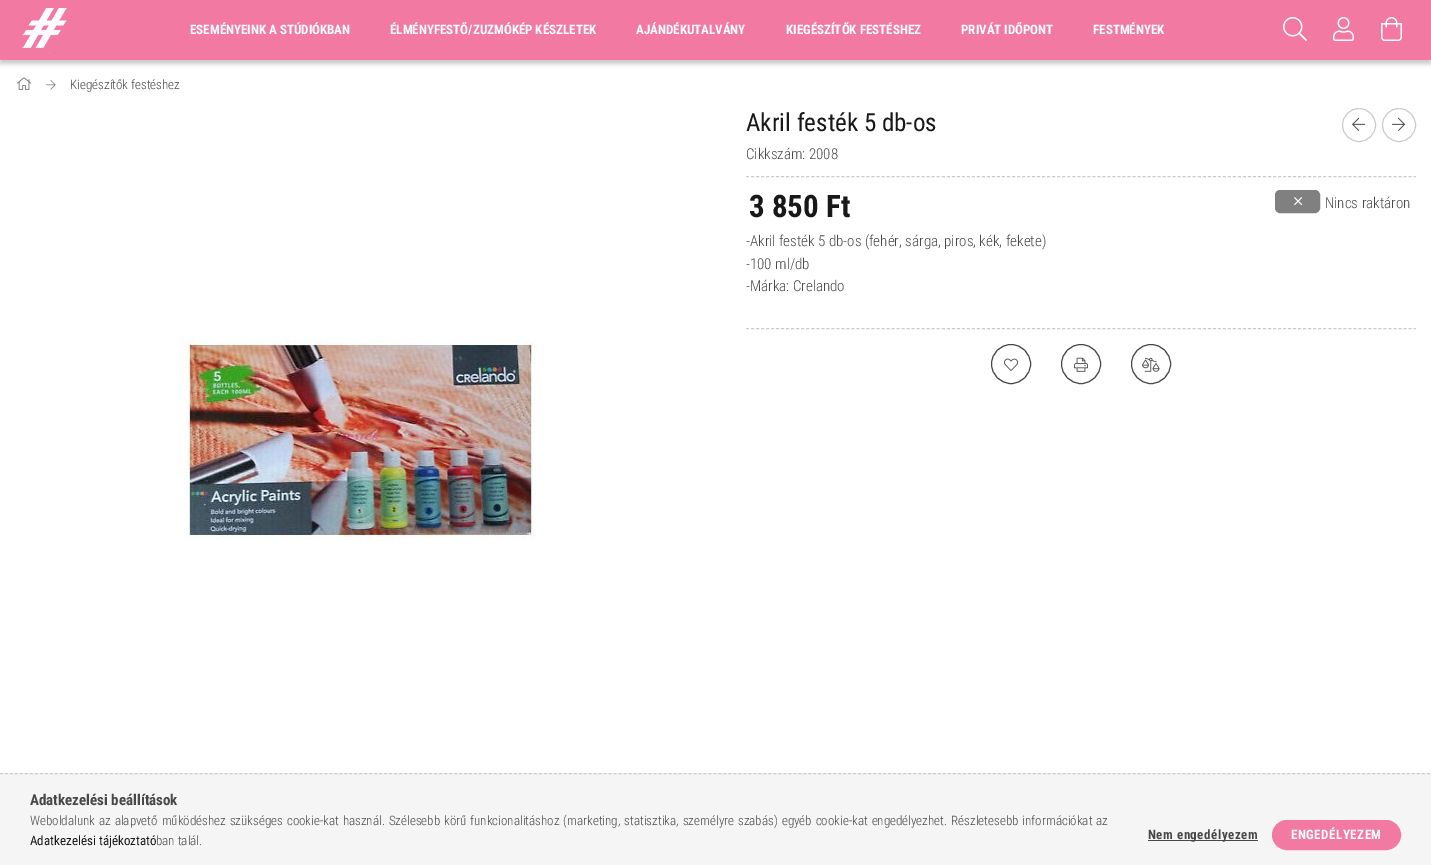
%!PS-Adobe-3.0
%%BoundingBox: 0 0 1431 865
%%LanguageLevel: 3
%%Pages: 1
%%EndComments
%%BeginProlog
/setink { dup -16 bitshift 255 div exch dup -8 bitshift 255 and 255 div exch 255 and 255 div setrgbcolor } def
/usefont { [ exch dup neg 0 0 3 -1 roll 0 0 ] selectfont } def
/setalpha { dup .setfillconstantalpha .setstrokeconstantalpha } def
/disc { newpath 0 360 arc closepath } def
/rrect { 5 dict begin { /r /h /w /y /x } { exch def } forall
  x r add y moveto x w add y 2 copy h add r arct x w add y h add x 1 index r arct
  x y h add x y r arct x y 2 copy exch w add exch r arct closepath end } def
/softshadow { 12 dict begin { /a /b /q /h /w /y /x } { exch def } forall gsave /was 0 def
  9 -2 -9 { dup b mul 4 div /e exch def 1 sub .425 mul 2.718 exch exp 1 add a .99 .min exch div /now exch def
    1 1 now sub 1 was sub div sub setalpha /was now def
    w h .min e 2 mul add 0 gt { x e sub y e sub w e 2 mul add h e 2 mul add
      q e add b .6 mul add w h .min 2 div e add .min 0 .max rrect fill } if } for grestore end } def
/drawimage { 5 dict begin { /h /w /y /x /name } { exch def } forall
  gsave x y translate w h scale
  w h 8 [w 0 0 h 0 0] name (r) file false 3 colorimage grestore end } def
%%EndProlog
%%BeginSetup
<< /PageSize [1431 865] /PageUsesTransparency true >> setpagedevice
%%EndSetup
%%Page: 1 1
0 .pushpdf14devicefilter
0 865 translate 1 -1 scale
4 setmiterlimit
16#FFFFFF setink
0 0 1431 865 rectfill
16#000000 setink
0 4 1431 60 0 2 0.2 softshadow
16#F279A1 setink
0 0 1431 60 rectfill
(img1.raw) 22 8 45 46 drawimage
/RobotoCondensed-Bold 13 usefont
16#FFFFFF setink
[
    [(ESEMÉNYEINK A STÚDIÓKBAN) 190 34]
    [(ÉLMÉNYFESTŐ/ZUZMÓKÉP KÉSZLETEK) 390 34]
    [(AJÁNDÉKUTALVÁNY) 636 34]
    [(KIEGÉSZÍTŐK FESTÉSHEZ) 786 34]
    [(PRIVÁT IDŐPONT) 961 34]
    [(FESTMÉNYEK) 1093 34]
] { aload pop moveto show } forall
(img2.raw) 1283 17 24 24 drawimage
(img3.raw) 1333 17 21 24 drawimage
(img4.raw) 1381 17 21 24 drawimage
(img5.raw) 17 77 15 13 drawimage
(img6.raw) 46 80 10 10 drawimage
/RobotoCondensed-Light 13 usefont
16#484848 setink
70 89 moveto (Kiegészítők festéshez) show
16#CCCCCC setink
[3 2.02] 0 setdash
746 176.5 moveto 1416 176.5 lineto stroke
/RobotoCondensed-Regular 25 usefont
16#181818 setink
746 131 moveto (Akril festék 5 db-os) show
16#CCCCCC setink
[] 0 setdash
1359 125 16.5 disc stroke
(img7.raw) 1352 117 14 14 drawimage
1399 125 16.5 disc stroke
(img8.raw) 1392 117 14 14 drawimage
/RobotoCondensed-Light 15 usefont
16#484848 setink
746 159 moveto (Cikkszám: 2008) show
/RobotoCondensed-Bold 31 usefont
16#181818 setink
749 217 moveto (3 850 Ft) show
16#808080 setink
1275.5 190.5 44 22 4.5 rrect gsave fill grestore
stroke
(img9.raw) 1294 197 9 9 drawimage
/RobotoCondensed-Light 15 usefont
16#484848 setink
[
    [(Nincs raktáron) 1325 208]
    [(-Akril festék 5 db-os \(fehér, sárga, piros, kék, fekete\)) 746 246]
    [(-100 ml/db) 746 269]
    [(-Márka: Crelando) 746 291]
] { aload pop moveto show } forall
16#CCCCCC setink
[3 2.02] 0 setdash
746 328.5 moveto 1416 328.5 lineto stroke
16#484848 setink
[] 0 setdash
1011 364 19.5 disc stroke
(img10.raw) 1004 358 14 13 drawimage
1081 364 19.5 disc stroke
(img11.raw) 1074 357 14 15 drawimage
1151 364 19.5 disc stroke
(img12.raw) 1142 357 18 15 drawimage
(img13.raw) 177 337 360 203 drawimage
16#F5F5F5 setink
0 773 1431 92 rectfill
16#CCCCCC setink
[3 1.99] 0 setdash
0 773.5 moveto 1431 773.5 lineto stroke
/RobotoCondensed-Bold 15 usefont
16#484848 setink
30 805 moveto (Adatkezelési beállítások) show
/RobotoCondensed-Light 13 usefont
30 825 moveto 1.1 0 32 (Weboldalunk az alapvető működéshez szükséges cookie-kat használ. Szélesebb körű funkcionalitáshoz \(marketing, statisztika, személyre szabás\) egyéb cookie-kat engedélyezhet. Részletesebb információkat az) widthshow
/RobotoCondensed-Regular 13 usefont
16#181818 setink
30 845 moveto (Adatkezelési tájékoztató) show
/RobotoCondensed-Light 13 usefont
16#484848 setink
156 845 moveto (ban talál.) show
1148 840 110 1 rectfill
/RobotoCondensed-Bold 13 usefont
1148 839 moveto 0.5 0 (Nem engedélyezem) ashow
16#F279A1 setink
1272.5 820.5 128 29 14.5 rrect gsave fill grestore
[] 0 setdash
stroke
16#FFFFFF setink
1291 839 moveto 0.5 0 (ENGEDÉLYEZEM) ashow
.poppdf14devicefilter showpage
%%EOF
